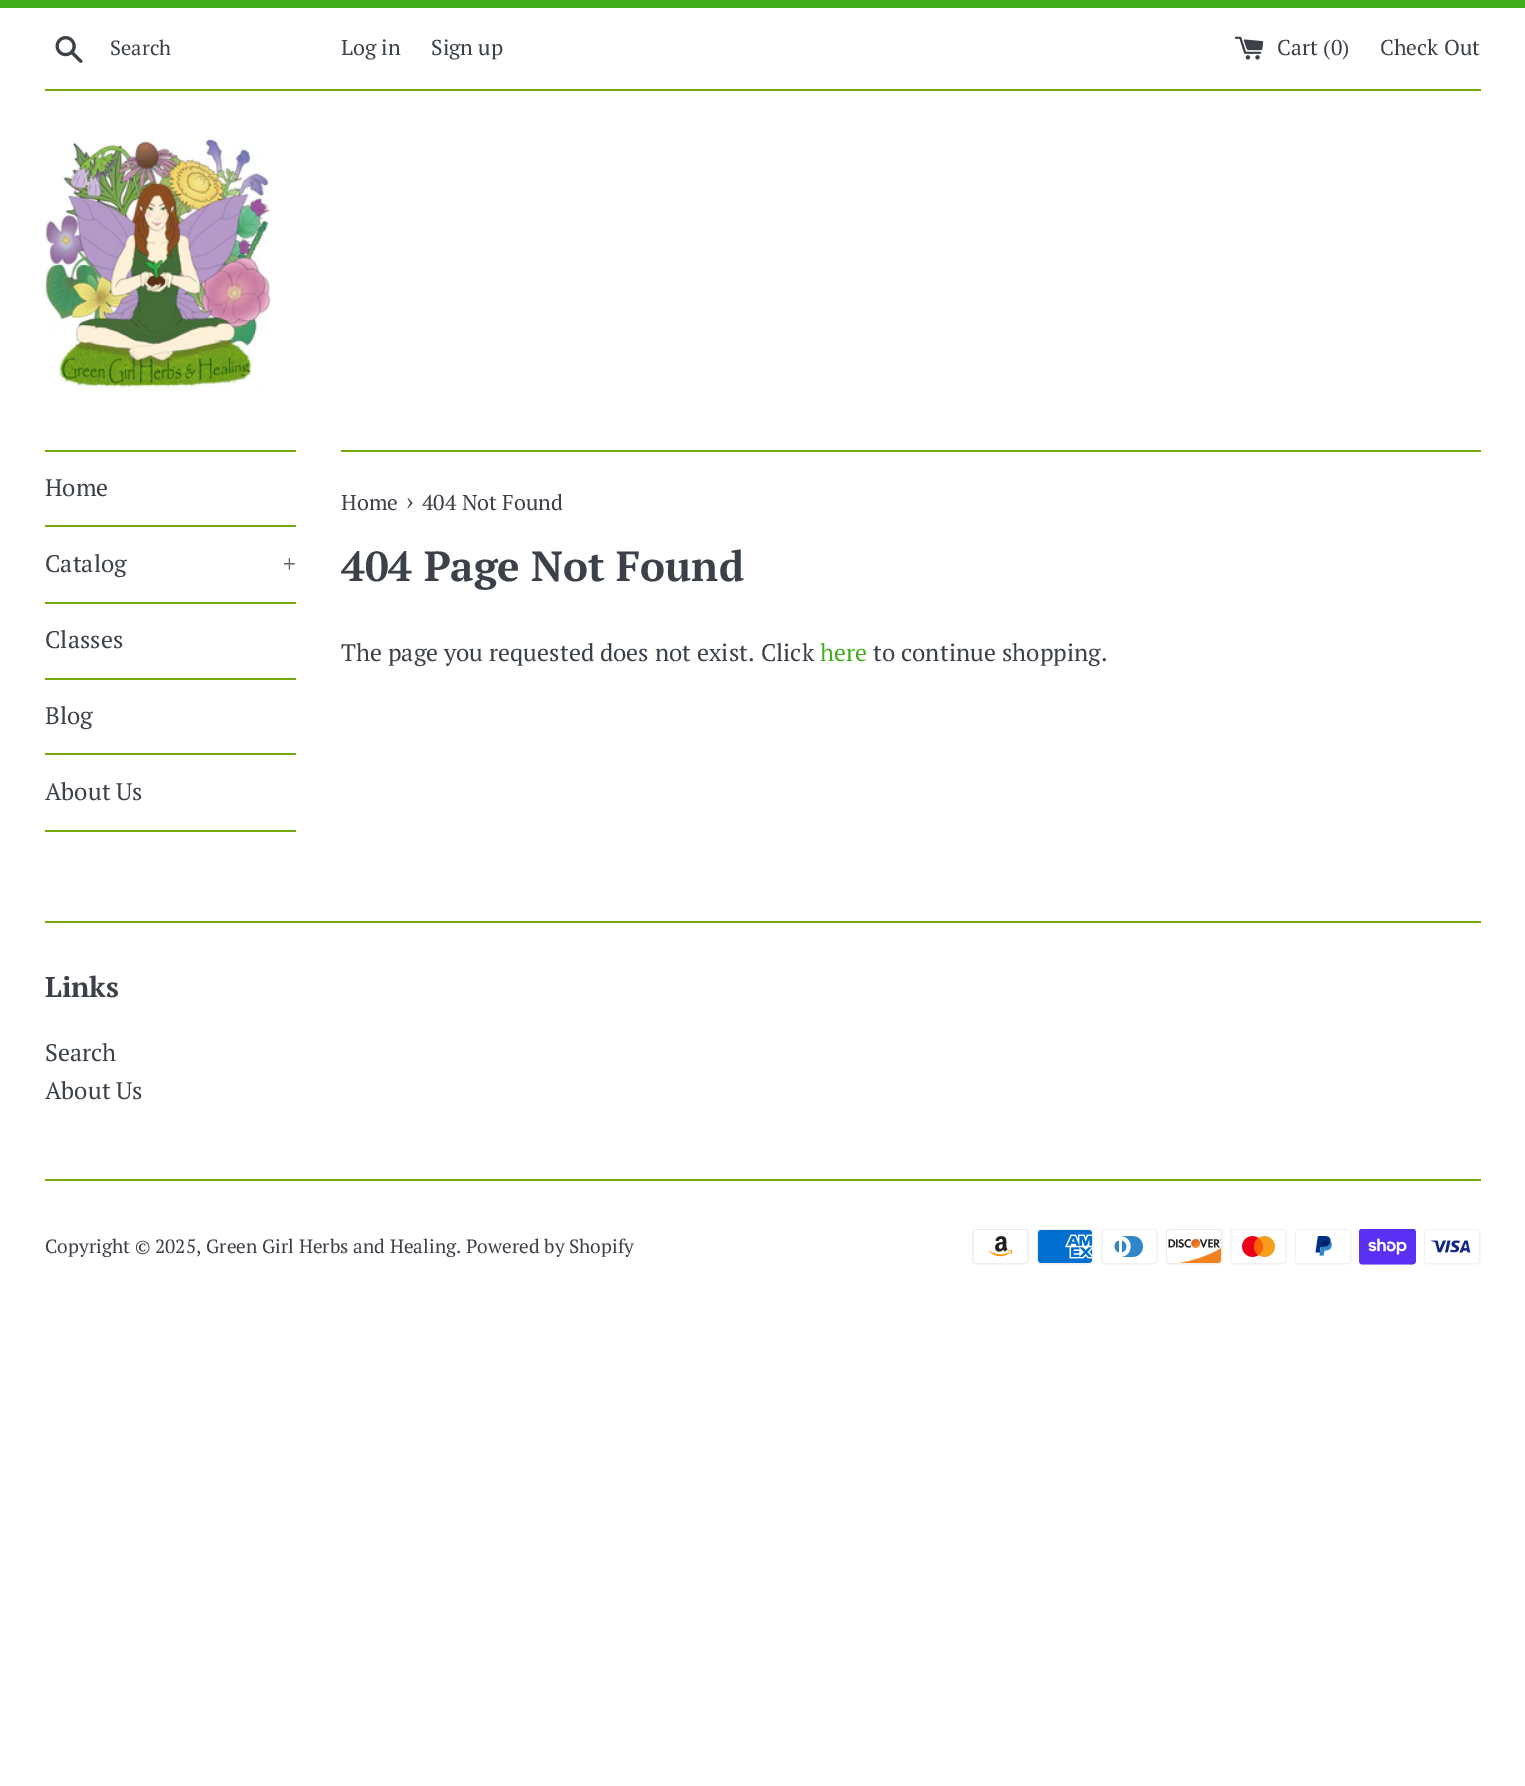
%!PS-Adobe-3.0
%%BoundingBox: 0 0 1525 1786
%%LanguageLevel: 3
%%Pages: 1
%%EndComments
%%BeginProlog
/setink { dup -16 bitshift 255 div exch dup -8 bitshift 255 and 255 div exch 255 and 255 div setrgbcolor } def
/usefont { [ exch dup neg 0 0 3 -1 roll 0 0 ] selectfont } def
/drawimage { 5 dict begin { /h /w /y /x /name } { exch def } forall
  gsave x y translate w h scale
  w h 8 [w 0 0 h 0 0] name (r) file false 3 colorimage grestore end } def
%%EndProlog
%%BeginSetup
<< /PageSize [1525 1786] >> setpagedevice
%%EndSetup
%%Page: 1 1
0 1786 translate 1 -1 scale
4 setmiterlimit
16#FFFFFF setink
0 0 1525 1786 rectfill
16#42AE1E setink
0 0 1525 8 rectfill
(img1.raw) 55 36 28 27 drawimage
/PTSerif-Regular 20.5 usefont
16#3C4049 setink
110 55 moveto (Search) show
/PTSerif-Regular 21.5 usefont
341 55 moveto (Log in) show
431 55 moveto (Sign up) show
(img2.raw) 1235 36 29 24 drawimage
1277 55 moveto (Cart \(0\)) show
1380 55 moveto (Check Out) show
16#75A70B setink
45 89 1436 2 rectfill
(img3.raw) 45 135 225 260 drawimage
45 450 251 2 rectfill
45 525 251 2 rectfill
/PTSerif-Regular 24 usefont
16#3C4049 setink
45 496 moveto (Home) show
16#75A70B setink
45 602 251 2 rectfill
16#3C4049 setink
45 572 moveto (Catalog) show
16#63666D setink
283 572 moveto (+) show
16#75A70B setink
45 678 251 2 rectfill
16#3C4049 setink
45 648 moveto (Classes) show
16#75A70B setink
45 753 251 2 rectfill
16#3C4049 setink
45 724 moveto (Blog) show
16#75A70B setink
45 830 251 2 rectfill
16#3C4049 setink
45 800 moveto (About Us) show
16#75A70B setink
341 450 1140 2 rectfill
/PTSerif-Regular 21.5 usefont
16#3C4049 setink
341 510 moveto (Home) show
/PTSerif-Regular 26 usefont
406 510 moveto (›) show
/PTSerif-Regular 21.5 usefont
422 510 moveto (404 Not Found) show
/PTSerif-Bold 42 usefont
341 581 moveto (404 Page Not Found) show
/PTSerif-Regular 24 usefont
341 661 moveto (The page you requested does not exist. Click) show
16#42AE1E setink
820 661 moveto (here) show
16#3C4049 setink
873 661 moveto (to continue shopping.) show
16#75A70B setink
45 921 1436 2 rectfill
/PTSerif-Bold 28.5 usefont
16#3C4049 setink
45 997 moveto (Links) show
/PTSerif-Regular 24 usefont
45 1061 moveto (Search) show
45 1099 moveto (About Us) show
16#75A70B setink
45 1179 1436 2 rectfill
/PTSerif-Regular 19.2 usefont
16#3C4049 setink
45 1253 moveto (Copyright © 2025, Green Girl Herbs and Healing. Powered by Shopify) show
(img4.raw) 972 1229 57 36 drawimage
(img5.raw) 1037 1229 57 36 drawimage
(img6.raw) 1101 1229 57 36 drawimage
(img7.raw) 1166 1229 57 36 drawimage
(img8.raw) 1230 1229 57 36 drawimage
(img9.raw) 1295 1229 57 36 drawimage
(img10.raw) 1359 1229 57 36 drawimage
(img11.raw) 1424 1229 57 36 drawimage
showpage
%%EOF
